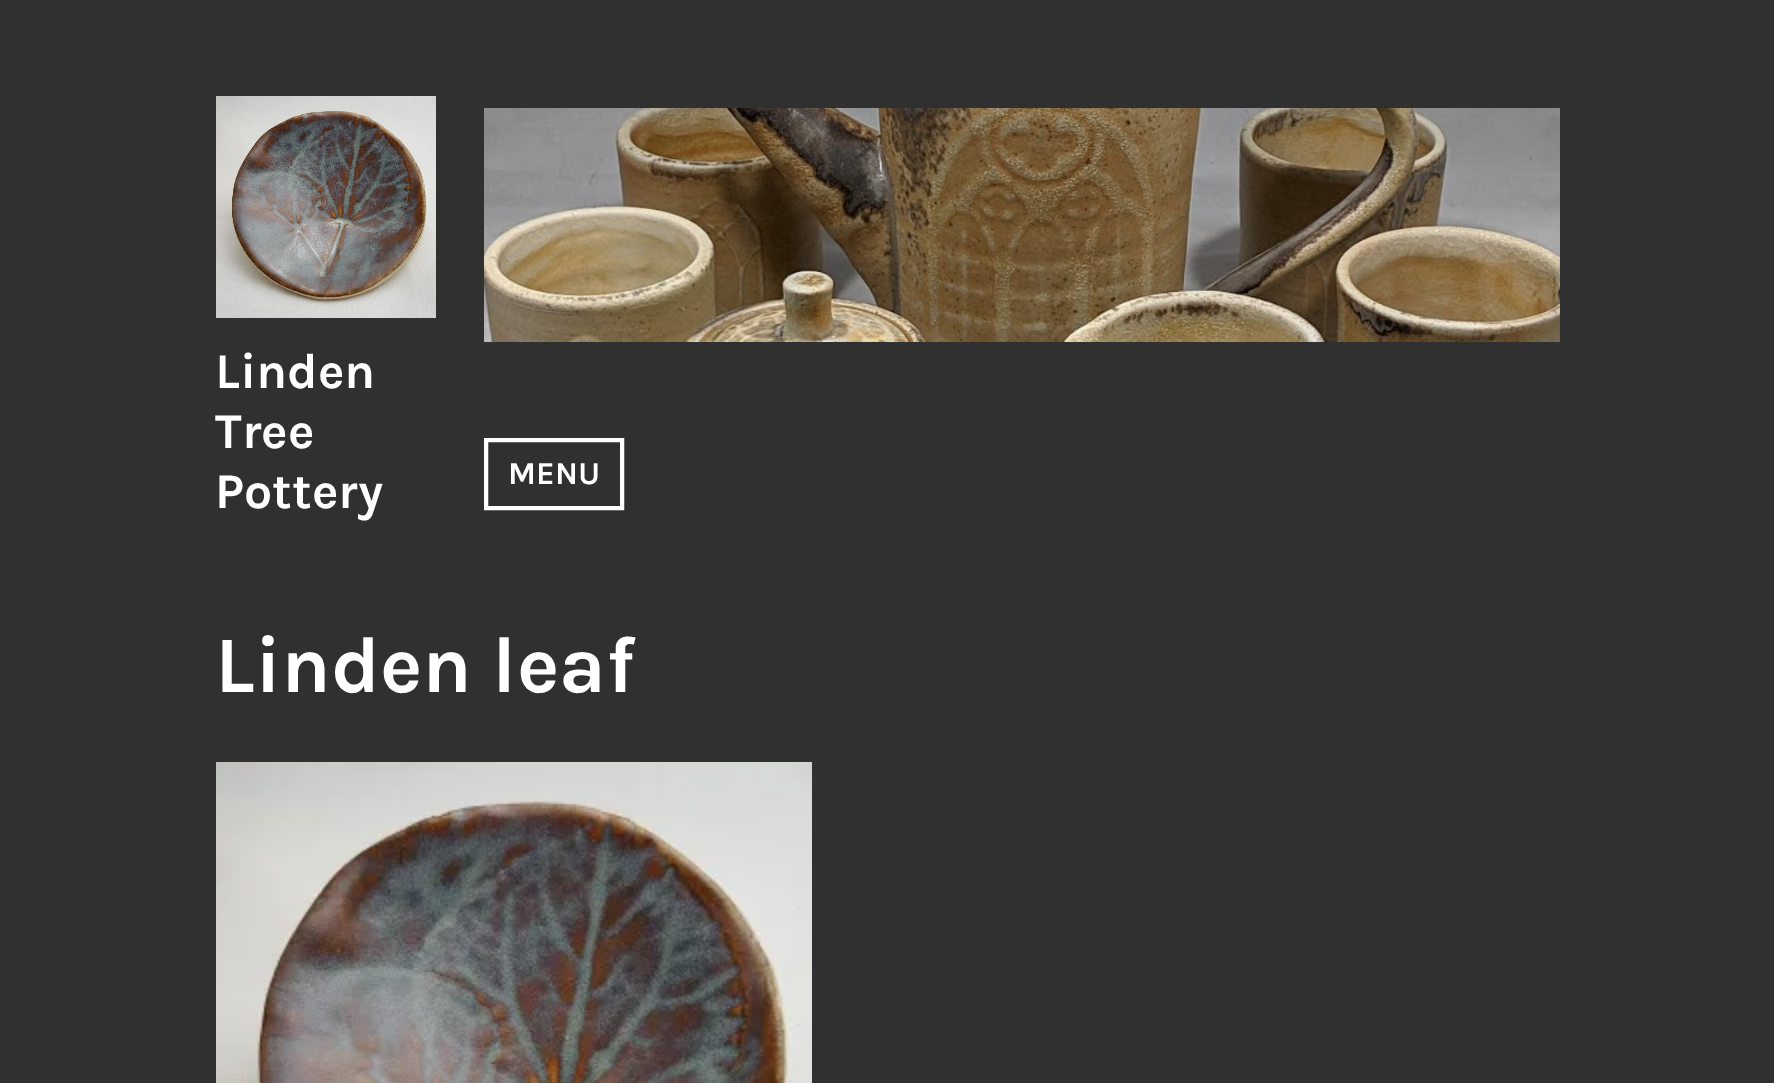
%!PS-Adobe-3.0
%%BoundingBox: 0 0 1774 1083
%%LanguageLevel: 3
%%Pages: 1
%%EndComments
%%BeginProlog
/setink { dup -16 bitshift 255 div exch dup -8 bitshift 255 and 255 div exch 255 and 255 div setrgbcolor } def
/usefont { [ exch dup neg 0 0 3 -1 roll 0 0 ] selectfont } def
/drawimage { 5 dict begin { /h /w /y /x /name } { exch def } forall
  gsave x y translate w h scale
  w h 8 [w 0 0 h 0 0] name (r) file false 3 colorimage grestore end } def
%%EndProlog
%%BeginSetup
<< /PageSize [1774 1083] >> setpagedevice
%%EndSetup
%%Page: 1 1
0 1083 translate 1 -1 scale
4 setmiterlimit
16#303030 setink
0 0 1774 1083 rectfill
(img1.raw) 216 96 220 222 drawimage
/Karla-Bold 50 usefont
16#FFFFFF setink
[
    [(Linden) 215 388]
    [(Tree) 215 448]
    [(Pottery) 215 508]
] { aload pop moveto show } forall
(img2.raw) 484 108 1076 234 drawimage
4 setlinewidth
486 440 136 68 rectstroke
/Karla-Bold 32 usefont
508 484 moveto (MENU) show
/Karla-Bold 80 usefont
215 692 moveto (Linden leaf) show
(img3.raw) 216 762 596 321 drawimage
showpage
%%EOF
